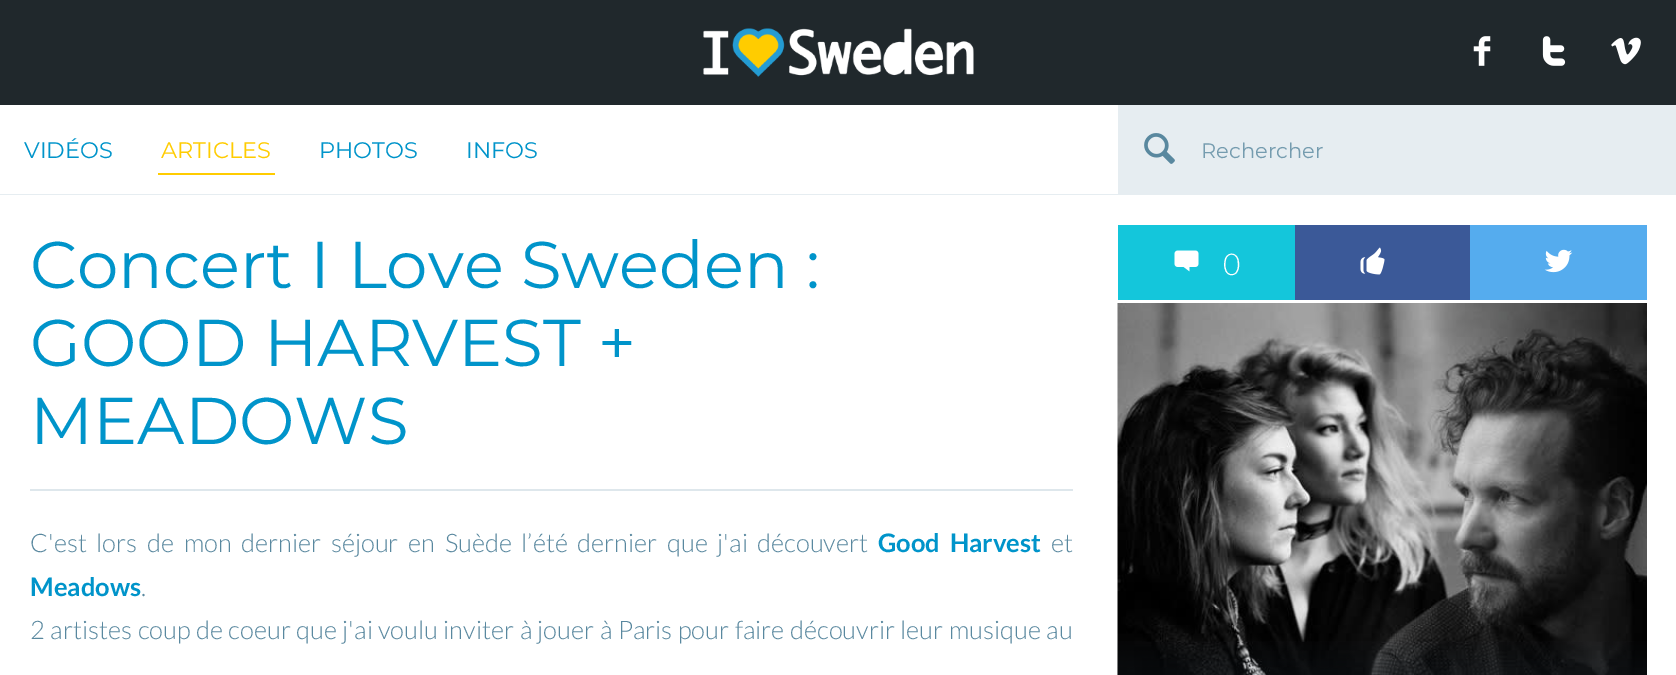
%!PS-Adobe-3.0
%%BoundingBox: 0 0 1676 675
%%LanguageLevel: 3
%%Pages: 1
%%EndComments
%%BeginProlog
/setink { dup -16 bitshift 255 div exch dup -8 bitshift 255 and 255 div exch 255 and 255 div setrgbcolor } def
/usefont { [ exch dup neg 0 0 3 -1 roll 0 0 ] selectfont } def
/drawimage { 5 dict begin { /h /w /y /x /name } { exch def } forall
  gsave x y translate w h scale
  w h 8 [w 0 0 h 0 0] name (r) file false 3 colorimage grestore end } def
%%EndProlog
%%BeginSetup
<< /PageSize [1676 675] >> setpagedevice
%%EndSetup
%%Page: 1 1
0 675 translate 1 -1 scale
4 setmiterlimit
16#20282C setink
0 0 1676 675 rectfill
(img1.raw) 703 28 271 49 drawimage
(img2.raw) 1473 36 18 30 drawimage
(img3.raw) 1542 36 24 30 drawimage
(img4.raw) 1611 37 30 28 drawimage
16#FFFFFF setink
0 105 1118 89 rectfill
16#E6EDF1 setink
0 194 1118 1 rectfill
/Montserrat-Regular 22.5 usefont
16#0094CA setink
24 158 moveto (VIDÉOS) show
16#FFCC00 setink
161 158 moveto (ARTICLES) show
158 173 117 2 rectfill
16#0094CA setink
319 158 moveto (PHOTOS) show
466 158 moveto (INFOS) show
16#E6EDF1 setink
1118 105 558 90 rectfill
(img5.raw) 1144 133 31 31 drawimage
/Montserrat-Regular 21 usefont
16#759CAF setink
1201 158 moveto (Rechercher) show
16#FFFFFF setink
0 195 1676 480 rectfill
/Montserrat-Regular 66 usefont
16#0094CA setink
[
    [(Concert I Love Sweden :) 30 288]
    [(GOOD HARVEST +) 30 366]
    [(MEADOWS) 30 444]
] { aload pop moveto show } forall
16#DEE7EC setink
30 489 1043 2 rectfill
/Lato-Light 25.5 usefont
16#59889F setink
30 552 moveto 4.75 0 32 (C'est lors de mon dernier séjour en Suède l’été dernier que j'ai découvert) widthshow
/Lato-Bold 25.5 usefont
16#0094CA setink
878 552 moveto 4.75 0 32 (Good Harvest) widthshow
/Lato-Light 25.5 usefont
16#59889F setink
1051 552 moveto (et) show
/Lato-Bold 25.5 usefont
16#0094CA setink
30 596 moveto (Meadows) show
/Lato-Light 25.5 usefont
16#59889F setink
141 596 moveto (.) show
30 639 moveto 0.6 0 32 (2 artistes coup de coeur que j'ai voulu inviter à jouer à Paris pour faire découvrir leur musique au) widthshow
16#14C6DB setink
1118 225 177 75 rectfill
(img6.raw) 1174 250 25 22 drawimage
/Lato-Light 30 usefont
16#FFFFFF setink
1223 275 moveto (0) show
16#3B5998 setink
1295 225 175 75 rectfill
(img7.raw) 1360 247 25 28 drawimage
16#55ACEE setink
1470 225 177 75 rectfill
(img8.raw) 1544 249 29 24 drawimage
(img9.raw) 1117 303 530 372 drawimage
(img10.raw) 1117 641 530 34 drawimage
showpage
%%EOF
